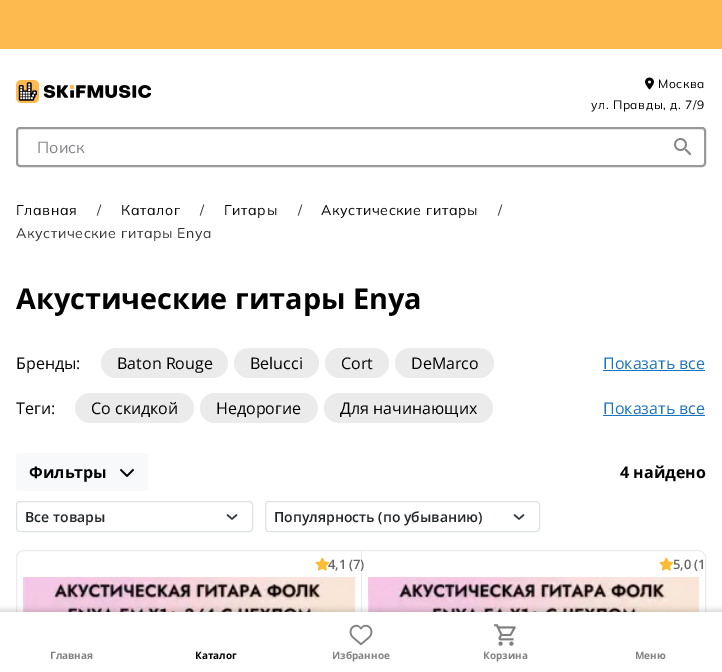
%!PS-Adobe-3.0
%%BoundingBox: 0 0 722 672
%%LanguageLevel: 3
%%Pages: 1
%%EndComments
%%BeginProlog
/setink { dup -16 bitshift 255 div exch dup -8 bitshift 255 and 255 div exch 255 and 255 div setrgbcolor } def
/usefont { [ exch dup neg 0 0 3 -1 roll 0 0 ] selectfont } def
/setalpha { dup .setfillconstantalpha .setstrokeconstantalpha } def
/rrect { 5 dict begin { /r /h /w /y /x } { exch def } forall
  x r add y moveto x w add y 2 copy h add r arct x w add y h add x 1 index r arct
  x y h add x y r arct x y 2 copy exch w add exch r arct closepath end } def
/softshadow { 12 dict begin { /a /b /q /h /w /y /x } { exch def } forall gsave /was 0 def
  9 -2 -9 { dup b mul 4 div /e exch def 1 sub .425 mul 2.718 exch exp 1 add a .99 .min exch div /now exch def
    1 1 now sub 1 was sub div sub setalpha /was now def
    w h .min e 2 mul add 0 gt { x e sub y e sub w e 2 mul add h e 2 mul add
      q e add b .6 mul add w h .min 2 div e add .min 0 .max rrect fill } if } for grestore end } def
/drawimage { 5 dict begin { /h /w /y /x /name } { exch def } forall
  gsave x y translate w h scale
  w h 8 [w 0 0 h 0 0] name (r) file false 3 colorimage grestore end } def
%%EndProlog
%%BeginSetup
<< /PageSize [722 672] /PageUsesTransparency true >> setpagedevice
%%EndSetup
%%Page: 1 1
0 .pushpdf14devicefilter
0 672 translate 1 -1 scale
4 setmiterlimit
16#FFFFFF setink
0 0 722 672 rectfill
16#FDBA4F setink
0 0 722 49 rectfill
(img1.raw) 16 80 135 23 drawimage
(img2.raw) 645 77 9 13 drawimage
/Mulish-Regular 12 usefont
16#000000 setink
658 88 moveto 0.6 0 (Москва) ashow
591 109 moveto 0.6 0 (ул. Правды, д. 7/9) ashow
16#999999 setink
2 setlinewidth
17 128 688 38 3 rrect stroke
/Mulish-Regular 16 usefont
16#838488 setink
37 153 moveto (Поиск) show
(img3.raw) 674 138 17 17 drawimage
/Mulish-Regular 14 usefont
16#000000 setink
16 215 moveto 0.6 0 (Главная) ashow
16#323232 setink
97 215 moveto 0.6 0 (/) ashow
16#000000 setink
121 215 moveto 0.6 0 (Каталог) ashow
16#323232 setink
200 215 moveto 0.6 0 (/) ashow
16#000000 setink
224 215 moveto 0.6 0 (Гитары) ashow
16#323232 setink
298 215 moveto 0.6 0 (/) ashow
16#000000 setink
321 215 moveto 0.6 0 (Акустические гитары) ashow
16#323232 setink
498 215 moveto 0.6 0 (/) ashow
16 238 moveto 0.6 0 (Акустические гитары Enya) ashow
/NotoSans-Bold 28.75 usefont
16#000000 setink
16 309 moveto (Акустические гитары Enya) show
/OpenSans-Regular 16 usefont
16 369 moveto (Бренды:) show
16#EBEBEB setink
101 348 127 30 15 rrect fill
16#000000 setink
117 369 moveto (Baton Rouge) show
16#EBEBEB setink
234 348 85 30 15 rrect fill
16#000000 setink
250 369 moveto (Belucci) show
16#EBEBEB setink
325 348 64 30 15 rrect fill
16#000000 setink
341 369 moveto (Cort) show
16#EBEBEB setink
395 348 99 30 15 rrect fill
16#000000 setink
411 369 moveto (DeMarco) show
16#1B75BC setink
603 369 moveto (Показать все) show
603 370 102 1 rectfill
16#000000 setink
16 414 moveto (Теги:) show
16#EBEBEB setink
75 393 119 30 15 rrect fill
16#000000 setink
91 414 moveto (Со скидкой) show
16#EBEBEB setink
200 393 118 30 15 rrect fill
16#000000 setink
216 414 moveto (Недорогие) show
16#EBEBEB setink
324 393 169 30 15 rrect fill
16#000000 setink
340 414 moveto (Для начинающих) show
16#1B75BC setink
603 414 moveto (Показать все) show
603 415 102 1 rectfill
16#F8F9FA setink
16 453 132 38 4 rrect fill
/OpenSans-Bold 16 usefont
16#000000 setink
29 478 moveto (Фильтры) show
(img4.raw) 120 469 14 8 drawimage
/NotoSans-Bold 16 usefont
620 478 moveto (4 найдено) show
16#343A40 setink
1.5 setlinewidth
1 setlinecap
1 setlinejoin
227.5 515 moveto 232 519 lineto 236.5 515 lineto stroke
16#DEE2E6 setink
1 setlinewidth
0 setlinecap
0 setlinejoin
16.5 501.5 236 30 3.5 rrect stroke
/OpenSans-SemiBold 14 usefont
16#212529 setink
25 522 moveto (Все товары) show
16#343A40 setink
1.5 setlinewidth
1 setlinecap
1 setlinejoin
514.5 515 moveto 519 519 lineto 523.5 515 lineto stroke
16#DEE2E6 setink
1 setlinewidth
0 setlinecap
0 setlinejoin
265.5 501.5 274 30 3.5 rrect stroke
16#212529 setink
274 522 moveto (Популярность \(по убыванию\)) show
16#EBEBEB setink
16.5 550.5 689 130 7.5 rrect stroke
362 551 moveto 362 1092 lineto 17 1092 lineto 17 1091 lineto 361 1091 lineto 361 551 lineto closepath fill
(img5.raw) 315 557 14 14 drawimage
/OpenSans-SemiBold 13 usefont
16#666666 setink
328 569 moveto -1 0 32 (4,1 \(7\)) widthshow
(img6.raw) 23 577 332 35 drawimage
(img5.raw) 659 557 14 14 drawimage
673 569 moveto -1 0 32 (5,0 \(1) widthshow
(img7.raw) 368 577 331 35 drawimage
16#000000 setink
-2 610 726 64 0 3 0.17 softshadow
16#FFFFFF setink
0 612 722 60 rectfill
/OpenSans-Bold 10 usefont
16#808080 setink
50 659 moveto (Главная) show
16#000000 setink
195 659 moveto (Каталог) show
(img8.raw) 349 624 24 22 drawimage
16#808080 setink
332 659 moveto (Избранное) show
(img9.raw) 494 624 22 22 drawimage
483 659 moveto (Корзина) show
635 659 moveto (Меню) show
.poppdf14devicefilter showpage
%%EOF
